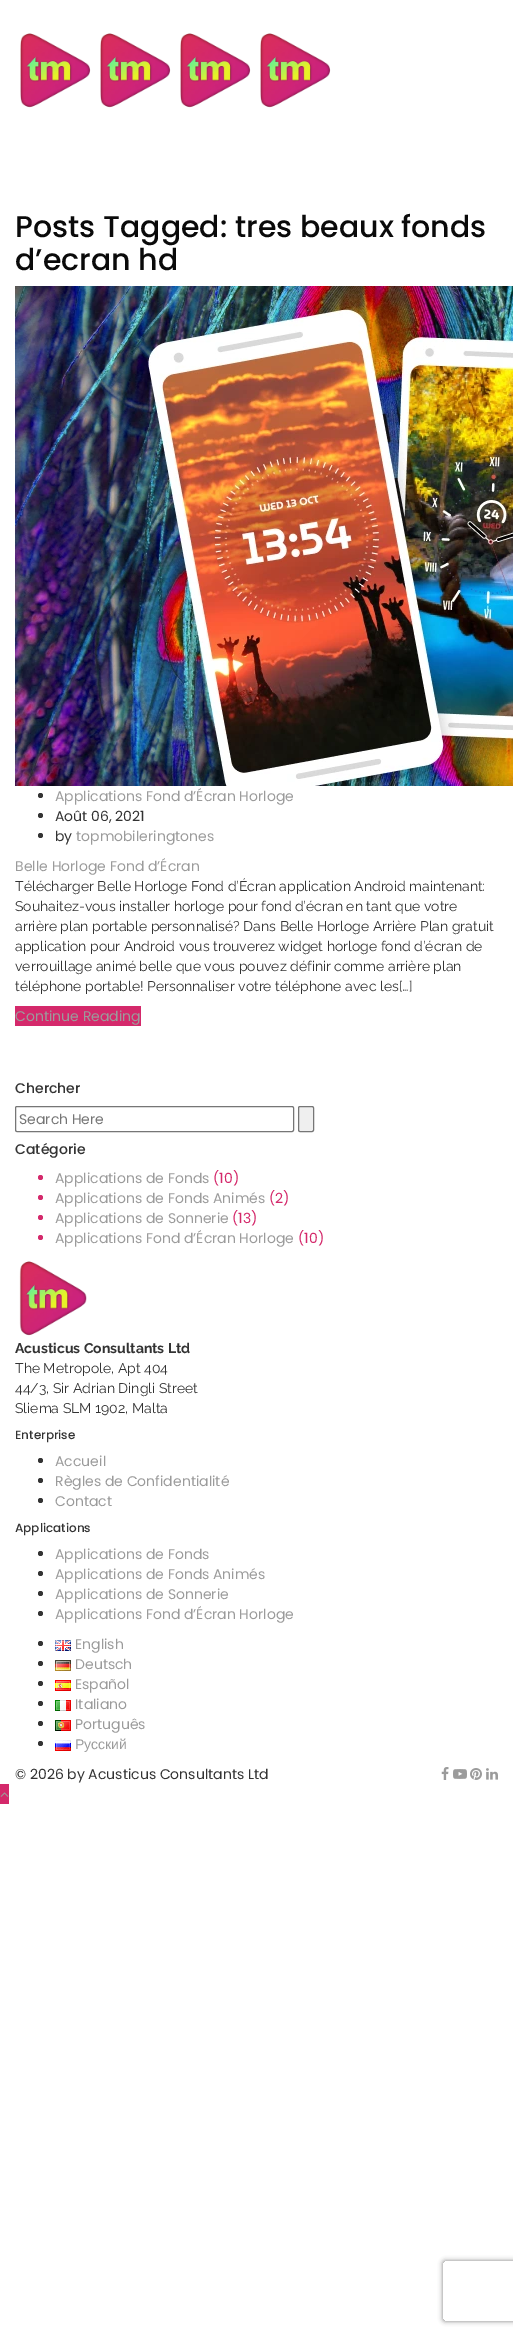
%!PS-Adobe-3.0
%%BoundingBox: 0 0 513 2335
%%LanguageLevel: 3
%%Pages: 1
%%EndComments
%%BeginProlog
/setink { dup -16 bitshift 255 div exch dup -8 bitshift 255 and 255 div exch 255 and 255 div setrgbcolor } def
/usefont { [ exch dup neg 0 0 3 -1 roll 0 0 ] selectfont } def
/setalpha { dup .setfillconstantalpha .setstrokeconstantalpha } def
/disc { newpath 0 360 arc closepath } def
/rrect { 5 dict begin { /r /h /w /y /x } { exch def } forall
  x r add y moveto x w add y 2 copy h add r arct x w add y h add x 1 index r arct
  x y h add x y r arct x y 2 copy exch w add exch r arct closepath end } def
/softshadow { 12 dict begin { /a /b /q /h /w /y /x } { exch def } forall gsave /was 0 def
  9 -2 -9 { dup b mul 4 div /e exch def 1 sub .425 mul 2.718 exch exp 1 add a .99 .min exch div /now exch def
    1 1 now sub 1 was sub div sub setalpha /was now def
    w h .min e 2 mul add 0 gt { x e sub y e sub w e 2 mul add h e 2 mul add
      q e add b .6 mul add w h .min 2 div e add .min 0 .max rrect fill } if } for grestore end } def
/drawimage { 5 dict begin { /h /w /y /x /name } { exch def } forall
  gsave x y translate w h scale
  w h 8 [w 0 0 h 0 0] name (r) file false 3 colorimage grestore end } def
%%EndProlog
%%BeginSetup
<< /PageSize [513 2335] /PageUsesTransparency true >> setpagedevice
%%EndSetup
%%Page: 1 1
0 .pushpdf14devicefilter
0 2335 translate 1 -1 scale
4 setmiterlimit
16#FFFFFF setink
0 0 513 2335 rectfill
(img1.raw) 20 33 71 75 drawimage
(img2.raw) 100 33 71 75 drawimage
(img3.raw) 180 33 71 75 drawimage
(img1.raw) 260 33 71 75 drawimage
/Poppins-Medium 30 usefont
16#0A0A0A setink
15 237 moveto (Posts Tagged: tres beaux fonds) show
15 270 moveto (d’ecran hd) show
(img4.raw) 15 286 498 500 drawimage
16#333333 setink
40.5 795.5 2.5 disc fill
/Poppins-Regular 14 usefont
16#9B9B9B setink
55 801 moveto (Applications Fond d’Écran Horloge) show
16#333333 setink
40.5 815.5 2.5 disc fill
55 821 moveto (Août 06, 2021) show
40.5 835.5 2.5 disc fill
55 841 moveto (by) show
16#9B9B9B setink
76 841 moveto (topmobileringtones) show
15 871 moveto (Belle Horloge Fond d’Écran) show
/Raleway-Regular 14 usefont
16#333333 setink
[
    [(Télécharger Belle Horloge Fond d’Écran application Android maintenant:) 15 891]
    [(Souhaitez-vous installer horloge pour fond d’écran en tant que votre) 15 911]
    [(arrière plan portable personnalisé? Dans Belle Horloge Arrière Plan gratuit) 15 931]
    [(application pour Android vous trouverez widget horloge fond d’écran de) 15 951]
    [(verrouillage animé belle que vous pouvez définir comme arrière plan) 15 971]
    [(téléphone portable! Personnaliser votre téléphone avec les[…]) 15 991]
] { aload pop moveto show } forall
16#D4296B setink
15 1006 126 20 rectfill
/Poppins-Regular 14 usefont
16#9B9B9B setink
15 1021 moveto (Continue Reading) show
/Poppins-Medium 14 usefont
16#333333 setink
15 1093 moveto (Chercher) show
16#767676 setink
15.5 1106.5 278 25 1.5 rrect stroke
/Poppins-Regular 14 usefont
16#757575 setink
19 1124 moveto (Search Here) show
16#EFEFEF setink
298.5 1106.5 15 25 1.5 rrect gsave fill grestore
16#767676 setink
stroke
/Poppins-Medium 14 usefont
16#333333 setink
15 1154 moveto (Catégorie) show
16#D4296B setink
40.5 1177.5 2.5 disc fill
/Poppins-Regular 14 usefont
16#9B9B9B setink
55 1183 moveto (Applications de Fonds) show
16#D4296B setink
213 1183 moveto (\(10\)) show
40.5 1197.5 2.5 disc fill
16#9B9B9B setink
55 1203 moveto (Applications de Fonds Animés) show
16#D4296B setink
269 1203 moveto (\(2\)) show
40.5 1217.5 2.5 disc fill
16#9B9B9B setink
55 1223 moveto (Applications de Sonnerie) show
16#D4296B setink
232 1223 moveto (\(13\)) show
40.5 1237.5 2.5 disc fill
16#9B9B9B setink
55 1243 moveto (Applications Fond d’Écran Horloge) show
16#D4296B setink
298 1243 moveto (\(10\)) show
(img5.raw) 19 1261 68 75 drawimage
/Raleway-Bold 14 usefont
16#333333 setink
15 1353 moveto (Acusticus Consultants Ltd) show
/Raleway-Regular 14 usefont
[
    [(The Metropole, Apt 404) 15 1373]
    [(44/3, Sir Adrian Dingli Street) 15 1393]
    [(Sliema SLM 1902, Malta) 15 1413]
] { aload pop moveto show } forall
/Poppins-Medium 12 usefont
15 1439 moveto (Enterprise) show
40.5 1460.5 2.5 disc fill
/Poppins-Regular 14 usefont
16#9B9B9B setink
55 1466 moveto (Accueil) show
16#333333 setink
40.5 1480.5 2.5 disc fill
16#9B9B9B setink
55 1486 moveto (Règles de Confidentialité) show
16#333333 setink
40.5 1500.5 2.5 disc fill
16#9B9B9B setink
55 1506 moveto (Contact) show
/Poppins-Medium 12 usefont
16#333333 setink
15 1532 moveto (Applications) show
40.5 1553.5 2.5 disc fill
/Poppins-Regular 14 usefont
16#9B9B9B setink
55 1559 moveto (Applications de Fonds) show
16#333333 setink
40.5 1573.5 2.5 disc fill
16#9B9B9B setink
55 1579 moveto (Applications de Fonds Animés) show
16#333333 setink
40.5 1593.5 2.5 disc fill
16#9B9B9B setink
55 1599 moveto (Applications de Sonnerie) show
16#333333 setink
40.5 1613.5 2.5 disc fill
16#9B9B9B setink
55 1619 moveto (Applications Fond d’Écran Horloge) show
16#333333 setink
40.5 1643.5 2.5 disc fill
(img6.raw) 55 1640 16 11 drawimage
16#9B9B9B setink
75 1649 moveto (English) show
16#333333 setink
40.5 1663.5 2.5 disc fill
(img7.raw) 55 1660 16 11 drawimage
16#9B9B9B setink
75 1669 moveto (Deutsch) show
16#333333 setink
40.5 1683.5 2.5 disc fill
(img8.raw) 55 1680 16 11 drawimage
16#9B9B9B setink
75 1689 moveto (Español) show
16#333333 setink
40.5 1703.5 2.5 disc fill
(img9.raw) 55 1700 16 11 drawimage
16#9B9B9B setink
75 1709 moveto (Italiano) show
16#333333 setink
40.5 1723.5 2.5 disc fill
(img10.raw) 55 1720 16 11 drawimage
16#9B9B9B setink
75 1729 moveto (Português) show
16#333333 setink
40.5 1743.5 2.5 disc fill
(img11.raw) 55 1740 16 11 drawimage
/LiberationSans-Regular 14 usefont
16#9B9B9B setink
75 1749 moveto (Русский) show
/Poppins-Regular 14 usefont
16#333333 setink
15 1779 moveto (© 2026 by Acusticus Consultants Ltd) show
(img12.raw) 441 1767 8 13 drawimage
(img13.raw) 453 1769 14 10 drawimage
(img14.raw) 470 1768 12 12 drawimage
(img15.raw) 486 1768 12 12 drawimage
16#D4296B setink
0 1784 9 20 rectfill
(img16.raw) 0 1792 9 5 drawimage
gsave
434 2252 moveto 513 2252 lineto 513 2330 lineto 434 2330 lineto closepath 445 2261 moveto 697 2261 lineto 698 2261 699 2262 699 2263 curveto 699 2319 lineto 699 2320 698 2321 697 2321 curveto 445 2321 lineto 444 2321 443 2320 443 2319 curveto 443 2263 lineto 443 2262 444 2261 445 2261 curveto closepath eoclip newpath
16#808080 setink
443 2261 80 60 2 2.5 1 softshadow
grestore
.poppdf14devicefilter showpage
%%EOF
